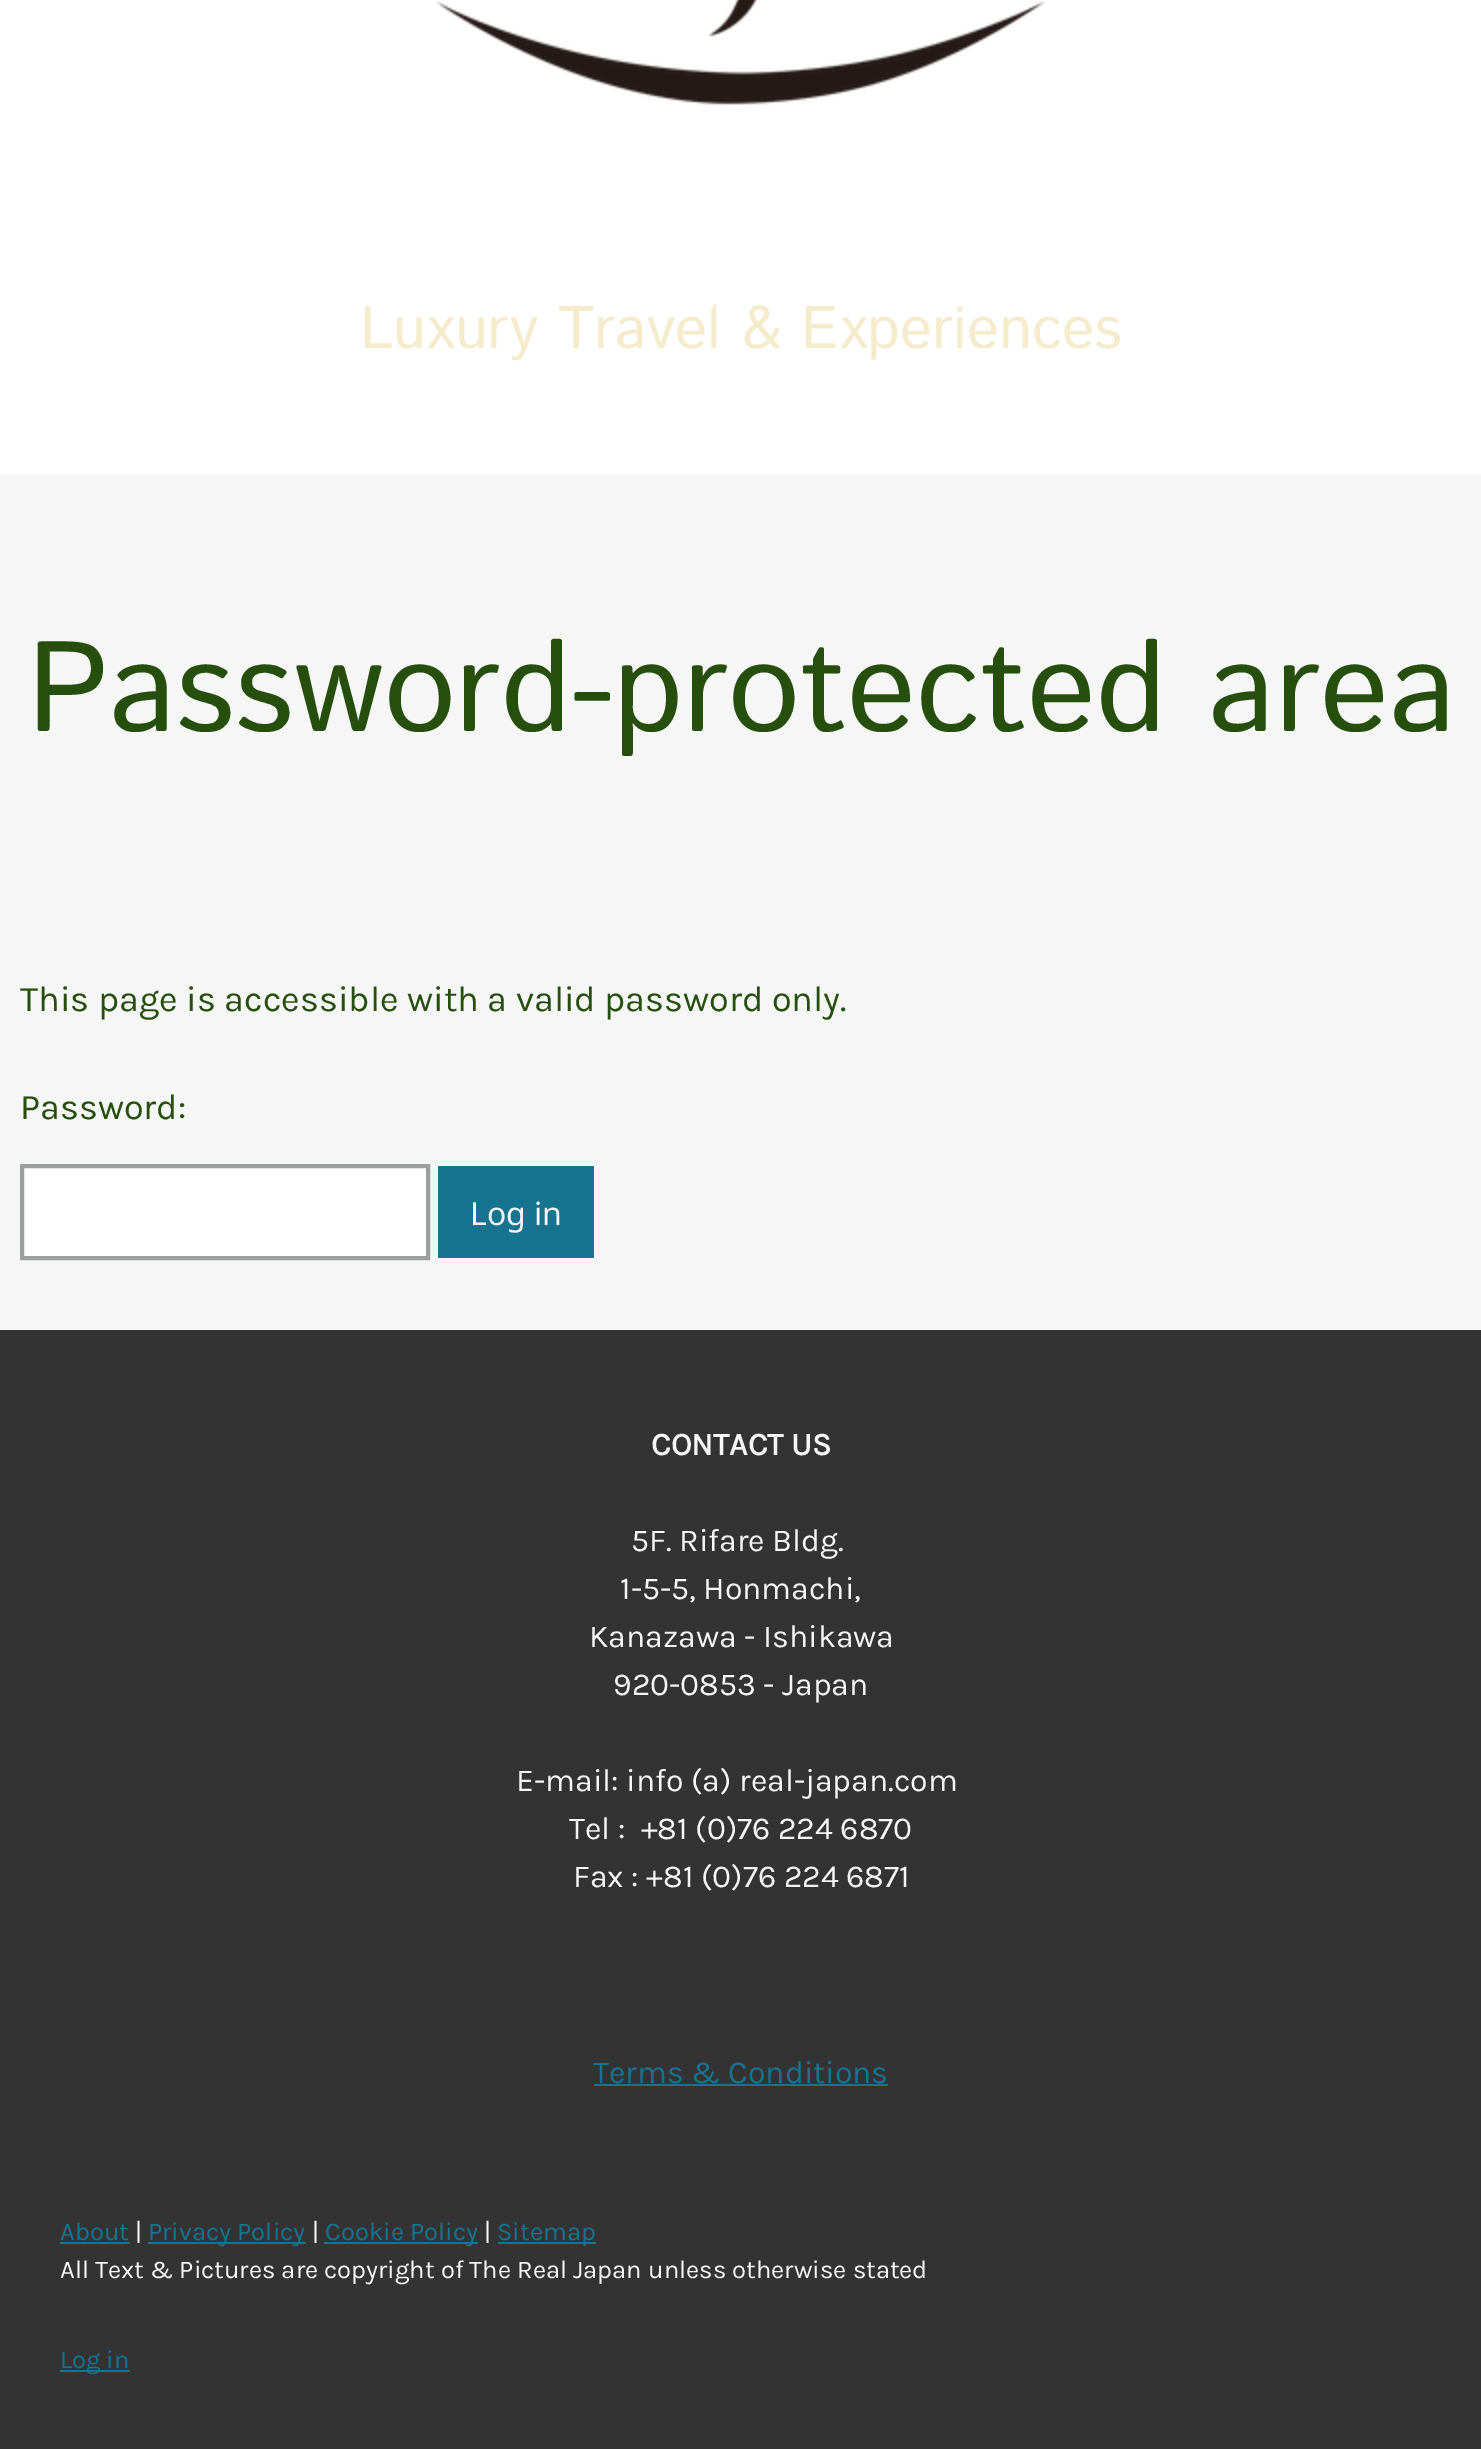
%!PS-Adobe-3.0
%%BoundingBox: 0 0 1481 2449
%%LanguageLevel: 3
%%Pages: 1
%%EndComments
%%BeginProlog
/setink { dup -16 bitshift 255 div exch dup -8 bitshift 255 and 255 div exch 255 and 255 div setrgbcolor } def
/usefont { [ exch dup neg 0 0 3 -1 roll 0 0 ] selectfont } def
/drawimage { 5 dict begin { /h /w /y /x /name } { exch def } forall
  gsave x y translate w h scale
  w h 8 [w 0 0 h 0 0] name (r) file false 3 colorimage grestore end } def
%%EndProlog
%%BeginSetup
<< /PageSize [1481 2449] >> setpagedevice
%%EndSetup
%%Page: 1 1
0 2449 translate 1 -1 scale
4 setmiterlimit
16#FFFFFF setink
0 0 1481 2449 rectfill
(img1.raw) 436 0 609 105 drawimage
/IstokWeb-Regular 60 usefont
16#F5ECCB setink
360 348 moveto (Luxury Travel & Experiences) show
16#F6F6F6 setink
0 474 1481 856 rectfill
/IstokWeb-Regular 128 usefont
16#264F0E setink
27 731 moveto (Password-protected area) show
/Karla-Regular 36 usefont
20 1011 moveto (This page is accessible with a valid password only.) show
20 1119 moveto (Password:) show
16#FFFFFF setink
22 1166 moveto 428 1166 lineto 428 1258 lineto 22 1258 lineto closepath gsave fill grestore
16#9D9E9E setink
4 setlinewidth
stroke
16#177490 setink
438 1166 156 92 rectfill
/NotoSans-Regular 32 usefont
16#F6F6F6 setink
470 1225 moveto (Log in) show
16#333333 setink
0 1330 1481 1119 rectfill
/Karla-Bold 32 usefont
16#F6F6F6 setink
651 1455 moveto (CONTACT US) show
/Karla-Regular 32 usefont
[
    [(5F. Rifare Bldg.) 631 1551]
    [(1-5-5, Honmachi,) 620 1599]
    [(Kanazawa - Ishikawa) 589 1647]
    [(920-0853 - Japan) 613 1695]
    [(E-mail: info \(a\) real-japan.com) 516 1791]
    [(Tel :  +81 \(0\)76 224 6870) 569 1839]
    [(Fax : +81 \(0\)76 224 6871) 573 1887]
] { aload pop moveto show } forall
16#177490 setink
593 2083 moveto (Terms & Conditions) show
594 2084 294 2 rectfill
/Karla-Regular 25.6 usefont
60 2240 moveto (About) show
60 2242 70 2 rectfill
16#F6F6F6 setink
135 2240 moveto (|) show
16#177490 setink
148 2242 158 2 rectfill
148 2240 moveto (Privacy Policy) show
16#F6F6F6 setink
312 2240 moveto (|) show
16#177490 setink
324 2242 154 2 rectfill
325 2240 moveto (Cookie Policy) show
16#F6F6F6 setink
484 2240 moveto (|) show
16#177490 setink
498 2242 98 2 rectfill
497 2240 moveto (Sitemap) show
16#F6F6F6 setink
60 2278 moveto (All Text & Pictures are copyright of The Real Japan unless otherwise stated) show
16#177490 setink
60 2370 70 2 rectfill
60 2368 moveto (Log in) show
showpage
%%EOF
